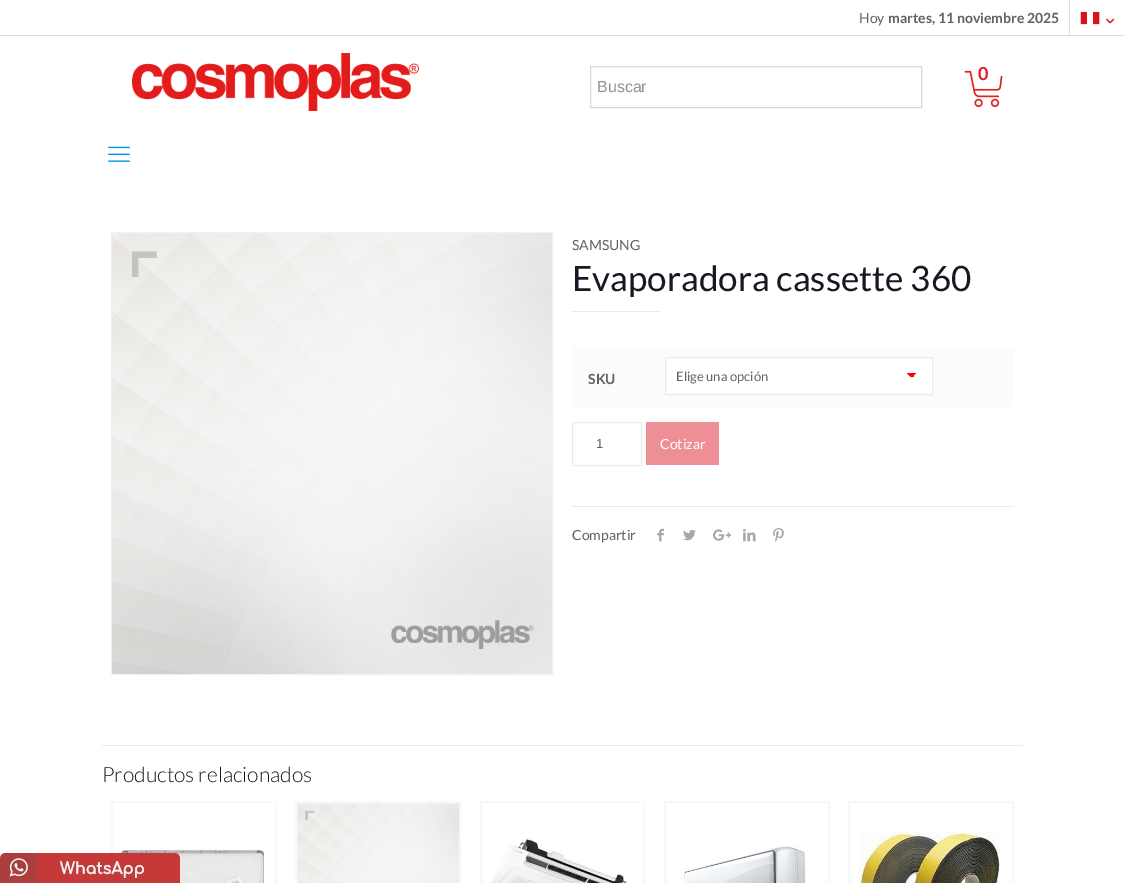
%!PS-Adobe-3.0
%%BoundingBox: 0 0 1125 883
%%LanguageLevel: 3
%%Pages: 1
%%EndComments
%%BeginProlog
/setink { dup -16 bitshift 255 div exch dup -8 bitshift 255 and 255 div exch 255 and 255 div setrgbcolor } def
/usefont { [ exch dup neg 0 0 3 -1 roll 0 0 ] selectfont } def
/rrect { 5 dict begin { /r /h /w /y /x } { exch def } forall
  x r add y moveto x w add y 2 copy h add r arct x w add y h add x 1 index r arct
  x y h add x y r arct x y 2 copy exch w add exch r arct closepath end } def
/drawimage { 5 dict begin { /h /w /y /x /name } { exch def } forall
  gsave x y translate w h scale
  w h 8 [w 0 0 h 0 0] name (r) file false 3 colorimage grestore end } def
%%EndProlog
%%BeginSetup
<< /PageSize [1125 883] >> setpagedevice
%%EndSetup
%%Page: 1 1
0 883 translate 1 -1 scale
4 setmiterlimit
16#FFFFFF setink
0 0 1125 883 rectfill
16#DEDEDE setink
0 35 1125 1 rectfill
1069 0 1 35 rectfill
/Lato-Regular 14 usefont
16#626262 setink
859 23 moveto (Hoy) show
/Lato-Bold 14 usefont
888 23 moveto (martes, 11 noviembre 2025) show
(img1.raw) 1080 11 20 14 drawimage
(img2.raw) 1106 18 9 6 drawimage
(img3.raw) 132 53 287 58 drawimage
(img4.raw) 964 70 39 38 drawimage
/Lato-Bold 18 usefont
16#DD1D2A setink
978 80 moveto (0) show
16#D8D8D8 setink
590.5 66.5 331 41 rectstroke
/LiberationSans-Regular 16 usefont
16#929292 setink
597 92 moveto (Buscar) show
(img5.raw) 108 146 22 16 drawimage
16#F2F2F2 setink
111.5 232.5 441 442 rectstroke
(img6.raw) 112 233 440 441 drawimage
/Lato-Regular 14 usefont
16#626262 setink
572 250 moveto (SAMSUNG) show
/Lato-Regular 35 usefont
16#161922 setink
572 291 moveto (Evaporadora cassette 360) show
16#EBEBEB setink
572 311 88 1 rectfill
16#FCFCFC setink
572 347 442 61 5 rrect fill
/Lato-Bold 14 usefont
16#626262 setink
588 384 moveto (SKU) show
16#FFFFFF setink
666 358 266 36 rectfill
gsave 912 373 moveto 917 373 lineto 917 377 lineto 912 377 lineto closepath clip newpath
<< /ShadingType 2 /ColorSpace /DeviceRGB /Coords [912 373 917 378] /Extend [true true] /Function << /FunctionType 3 /Domain [0 1] /Functions [<< /FunctionType 2 /Domain [0 1] /C0 [1 0 0] /C1 [1 0 0] /N 1 >> << /FunctionType 2 /Domain [0 1] /C0 [1 1 1] /C1 [1 1 1] /N 1 >>] /Bounds [0.5] /Encode [0 1 0 1] >> >> shfill grestore
gsave 907 373 moveto 912 373 lineto 912 377 lineto 907 377 lineto closepath clip newpath
<< /ShadingType 2 /ColorSpace /DeviceRGB /Coords [907 378 912 373] /Extend [true true] /Function << /FunctionType 3 /Domain [0 1] /Functions [<< /FunctionType 2 /Domain [0 1] /C0 [1 1 1] /C1 [1 1 1] /N 1 >> << /FunctionType 2 /Domain [0 1] /C0 [1 0 0] /C1 [1 0 0] /N 1 >>] /Bounds [0.5] /Encode [0 1 0 1] >> >> shfill grestore
16#EBEBEB setink
665.5 357.5 267 37 rectstroke
/Lato-Regular 13 usefont
16#626262 setink
676 381 moveto (Elige una opción) show
16#EBEBEB setink
572.5 422.5 69 43 rectstroke
/LiberationSans-Regular 13 usefont
16#626262 setink
596 448 moveto (1) show
16#EE8E95 setink
646 422 73 43 rectfill
/Lato-Regular 14 usefont
16#FFFFFF setink
660 449 moveto (Cotizar) show
16#EBEBEB setink
572 506 442 1 rectfill
16#626262 setink
572 540 moveto (Compartir) show
(img7.raw) 657 528 7 14 drawimage
(img8.raw) 683 529 13 12 drawimage
(img9.raw) 713 529 18 12 drawimage
(img10.raw) 743 528 13 14 drawimage
(img11.raw) 773 528 11 14 drawimage
16#EBEBEB setink
102 745 921 1 rectfill
/Lato-Light 21 usefont
16#161922 setink
102 782 moveto (Productos relacionados) show
16#F8F8F8 setink
2 setlinewidth
112 802 164 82 rectstroke
(img12.raw) 118 849 147 34 drawimage
296 802 164 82 rectstroke
gsave
297 803 162 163 rectclip
16#F2F2F2 setink
1 setlinewidth
297.5 803.5 163 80 rectstroke
grestore
(img13.raw) 298 804 161 79 drawimage
481 802 163 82 rectstroke
(img14.raw) 491 837 136 46 drawimage
665 802 164 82 rectstroke
(img15.raw) 683 846 123 37 drawimage
849 802 164 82 rectstroke
(img16.raw) 858 829 143 54 drawimage
(img17.raw) 0 853 180 30 drawimage
showpage
%%EOF
